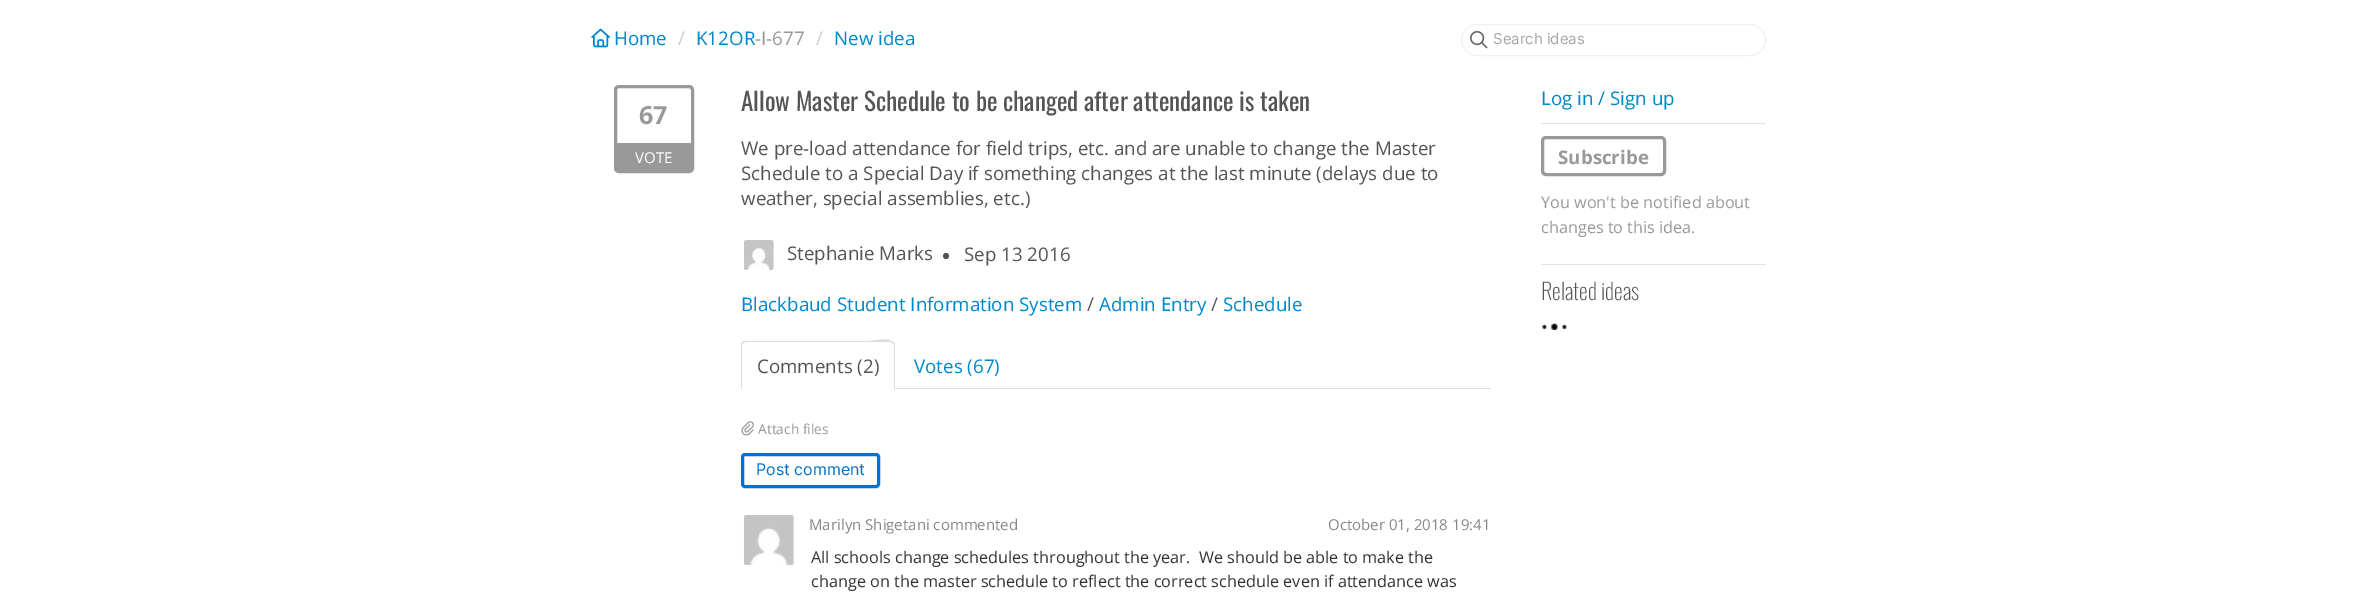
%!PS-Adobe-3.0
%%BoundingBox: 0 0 2356 596
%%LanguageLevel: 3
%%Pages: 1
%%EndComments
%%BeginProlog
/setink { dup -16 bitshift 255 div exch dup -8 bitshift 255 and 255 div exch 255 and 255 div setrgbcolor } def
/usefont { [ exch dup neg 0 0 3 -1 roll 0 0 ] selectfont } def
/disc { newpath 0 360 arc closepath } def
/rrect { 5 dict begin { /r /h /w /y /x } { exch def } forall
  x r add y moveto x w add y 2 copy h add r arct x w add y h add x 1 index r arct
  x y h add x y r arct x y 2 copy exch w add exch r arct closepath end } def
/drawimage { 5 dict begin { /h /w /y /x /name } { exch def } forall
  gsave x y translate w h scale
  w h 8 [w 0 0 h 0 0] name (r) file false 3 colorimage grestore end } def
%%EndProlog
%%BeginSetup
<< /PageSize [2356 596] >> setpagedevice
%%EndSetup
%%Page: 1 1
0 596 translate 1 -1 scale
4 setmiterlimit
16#FFFFFF setink
0 0 2356 596 rectfill
(img1.raw) 591 28 19 20 drawimage
/OpenSans-Regular 18.75 usefont
16#0088CC setink
614 45 moveto (Home) show
16#CCCCCC setink
678 45 moveto (/) show
16#0088CC setink
696 45 moveto (K12OR) show
16#999999 setink
755 45 moveto (-I-677) show
16#CCCCCC setink
816 45 moveto (/) show
16#0088CC setink
834 45 moveto (New idea) show
16#F1F1F1 setink
1461.5 24.5 304 31 15.5 rrect stroke
(img2.raw) 1470 30 18 19 drawimage
/Inter-Regular 15 usefont
16#A5A5A5 setink
1493 44 moveto (Search ideas) show
16#999999 setink
3 setlinewidth
615.5 86.5 77 85 3.5 rrect stroke
/OpenSans-Bold 25 usefont
639 124 moveto (67) show
617 143 74 27 rectfill
/OpenSans-Regular 15 usefont
16#FFFFFF setink
635 163 moveto (VOTE) show
/Oswald-Regular 25 usefont
16#555555 setink
741 111 moveto (Allow Master Schedule to be changed after attendance is taken) show
/OpenSans-Regular 18.75 usefont
[
    [(We pre-load attendance for field trips, etc. and are unable to change the Master) 741 155]
    [(Schedule to a Special Day if something changes at the last minute \(delays due to) 741 180]
    [(weather, special assemblies, etc.\)) 741 205]
] { aload pop moveto show } forall
(img3.raw) 744 240 30 30 drawimage
787 260 moveto (Stephanie Marks) show
946 256 3 disc fill
964 261 moveto (Sep 13 2016) show
16#0088CC setink
741 311 moveto (Blackbaud Student Information System) show
16#555555 setink
1087 311 moveto (/) show
16#0088CC setink
1099 311 moveto (Admin Entry) show
16#555555 setink
1211 311 moveto (/) show
16#0088CC setink
1223 311 moveto (Schedule) show
16#DDDDDD setink
895 388 596 1 rectfill
746 342 moveto 743 343 lineto 742 342 lineto 744 341 lineto 867 341 lineto 876 341 888 336 894 343 curveto 893 343 lineto 890 342 lineto closepath fill
895 389 moveto 895 346 lineto 895 345 895 343 894 343 curveto 893 343 lineto 894 344 894 345 894 346 curveto 894 388 lineto closepath fill
741 389 moveto 741 344 lineto 742 342 lineto 743 343 lineto 742 344 742 345 742 346 curveto 742 388 lineto closepath fill
16#555555 setink
757 373 moveto (Comments \(2\)) show
16#0088CC setink
914 373 moveto (Votes \(67\)) show
(img4.raw) 741 421 13 15 drawimage
/OpenSans-Regular 13.75 usefont
16#999999 setink
758 434 moveto (Attach files) show
16#0173CF setink
742.5 454.5 136 32 2.5 rrect stroke
/Inter-Regular 16 usefont
756 475 moveto (Post comment) show
(img5.raw) 743 515 51 50 drawimage
/OpenSans-Regular 15 usefont
16#888888 setink
809 530 moveto (Marilyn Shigetani commented) show
1328 530 moveto (October 01, 2018 19:41) show
/OpenSans-Regular 16.25 usefont
16#333333 setink
811 563 moveto (All schools change schedules throughout the year.  We should be able to make the) show
811 587 moveto (change on the master schedule to reflect the correct schedule even if attendance was) show
16#E1E1E1 setink
1541 123 225 1 rectfill
/OpenSans-Regular 18.75 usefont
16#0088CC setink
1541 105 moveto (Log in / Sign up) show
16#E1E1E1 setink
1541 264 225 1 rectfill
16#999999 setink
1542.5 137.5 122 37 3.5 rrect stroke
/OpenSans-Bold 18.75 usefont
1558 164 moveto (Subscribe) show
/OpenSans-Regular 16.25 usefont
1541 208 moveto (You won't be notified about) show
1541 233 moveto (changes to this idea.) show
/Oswald-ExtraLight 22.5 usefont
16#555555 setink
1541 300 moveto (Related ideas) show
(img6.raw) 1542 323 25 7 drawimage
showpage
%%EOF
